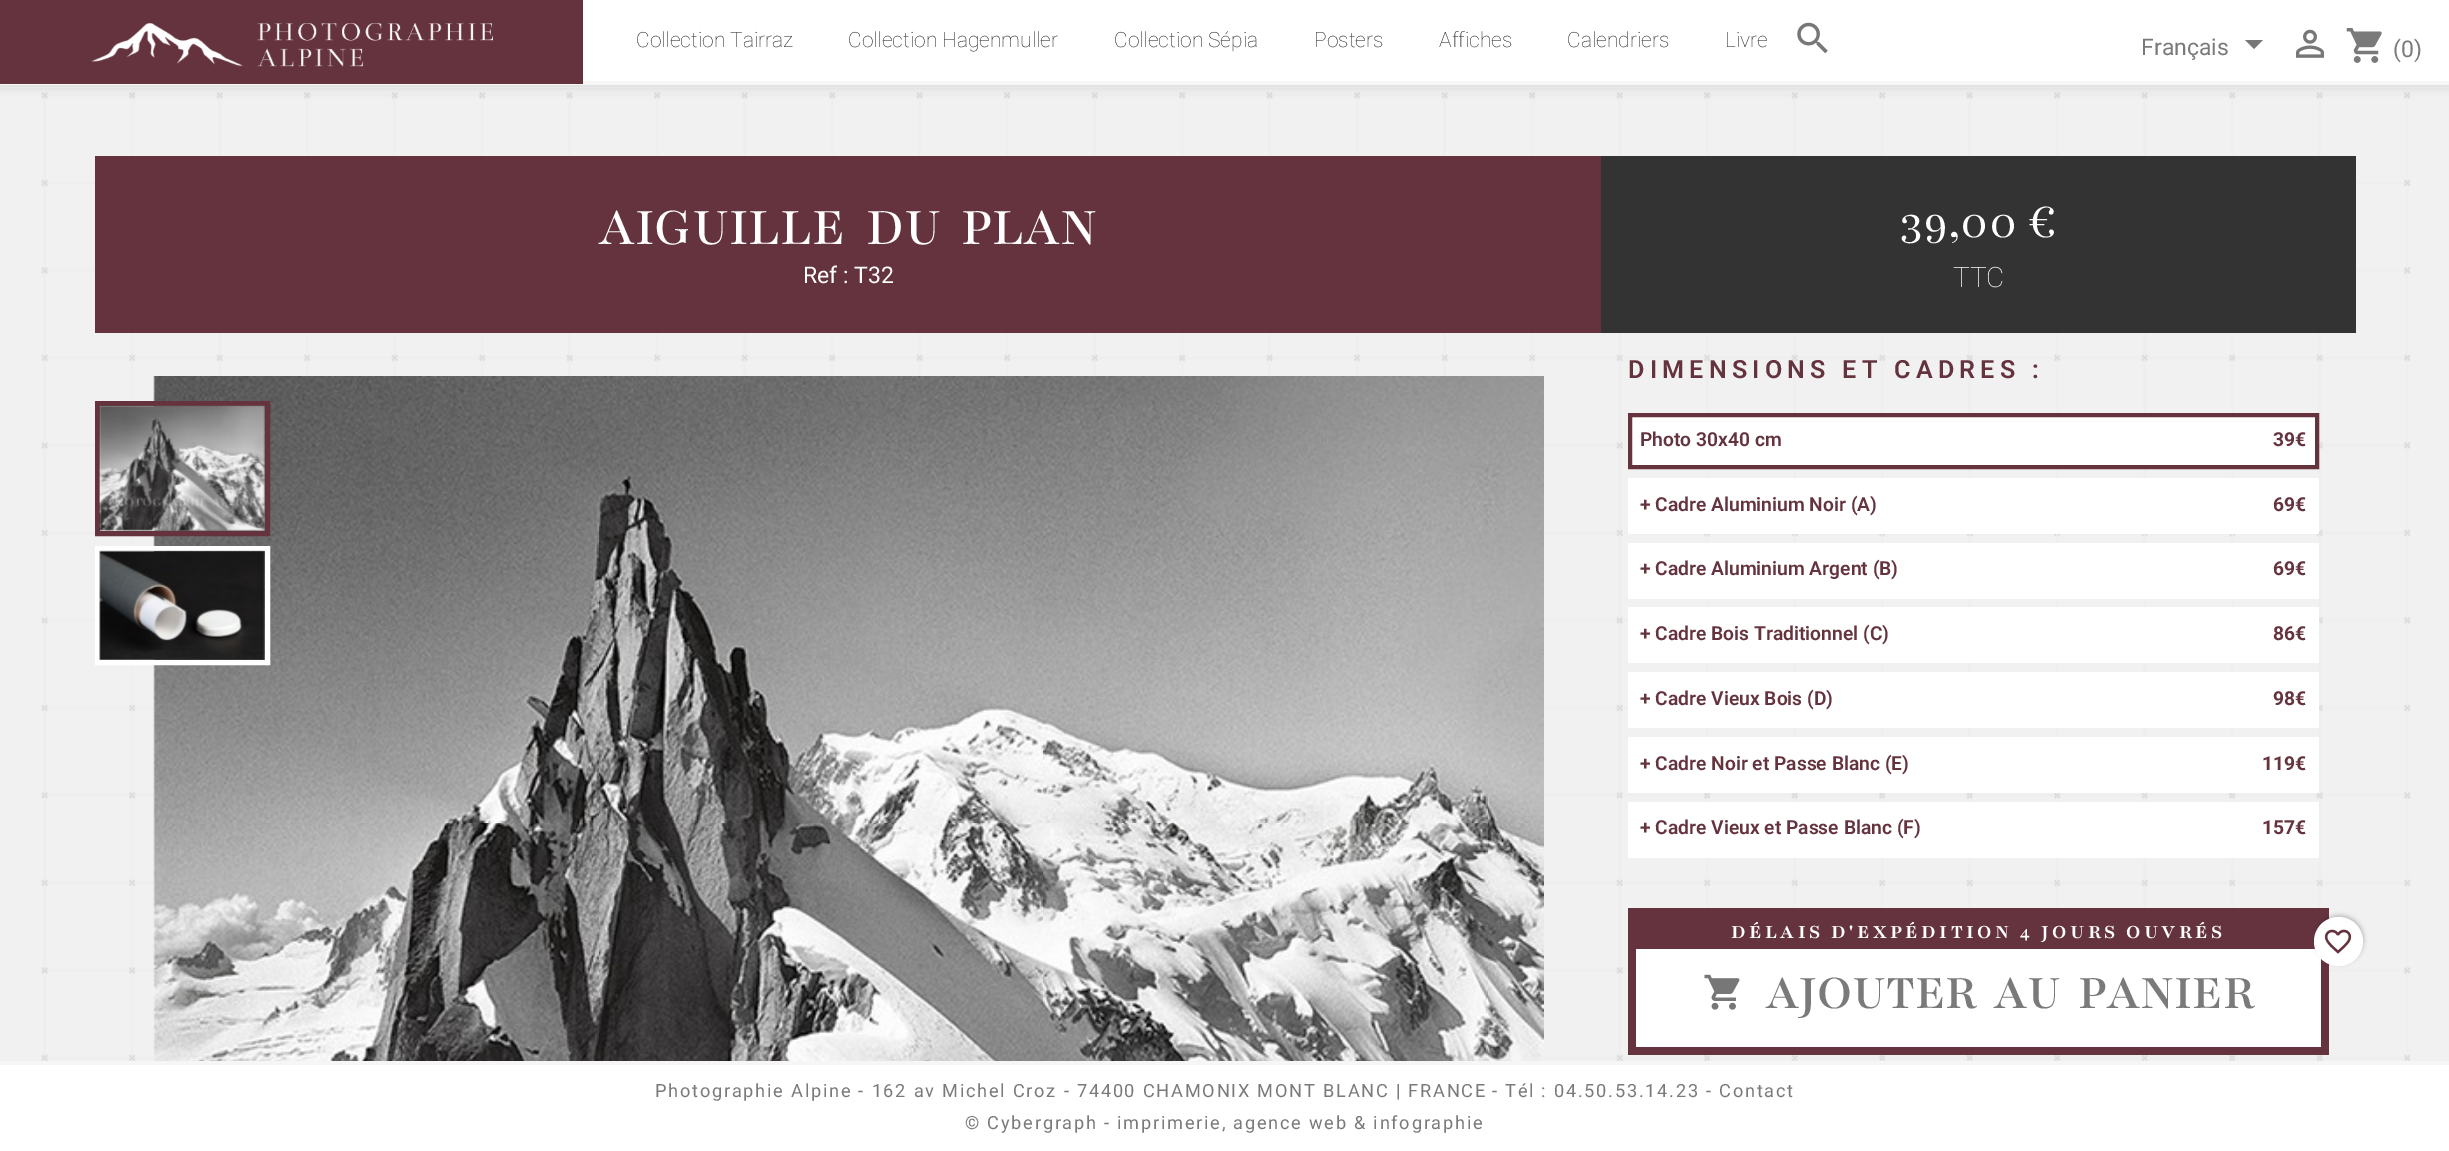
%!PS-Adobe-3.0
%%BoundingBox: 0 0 2449 1151
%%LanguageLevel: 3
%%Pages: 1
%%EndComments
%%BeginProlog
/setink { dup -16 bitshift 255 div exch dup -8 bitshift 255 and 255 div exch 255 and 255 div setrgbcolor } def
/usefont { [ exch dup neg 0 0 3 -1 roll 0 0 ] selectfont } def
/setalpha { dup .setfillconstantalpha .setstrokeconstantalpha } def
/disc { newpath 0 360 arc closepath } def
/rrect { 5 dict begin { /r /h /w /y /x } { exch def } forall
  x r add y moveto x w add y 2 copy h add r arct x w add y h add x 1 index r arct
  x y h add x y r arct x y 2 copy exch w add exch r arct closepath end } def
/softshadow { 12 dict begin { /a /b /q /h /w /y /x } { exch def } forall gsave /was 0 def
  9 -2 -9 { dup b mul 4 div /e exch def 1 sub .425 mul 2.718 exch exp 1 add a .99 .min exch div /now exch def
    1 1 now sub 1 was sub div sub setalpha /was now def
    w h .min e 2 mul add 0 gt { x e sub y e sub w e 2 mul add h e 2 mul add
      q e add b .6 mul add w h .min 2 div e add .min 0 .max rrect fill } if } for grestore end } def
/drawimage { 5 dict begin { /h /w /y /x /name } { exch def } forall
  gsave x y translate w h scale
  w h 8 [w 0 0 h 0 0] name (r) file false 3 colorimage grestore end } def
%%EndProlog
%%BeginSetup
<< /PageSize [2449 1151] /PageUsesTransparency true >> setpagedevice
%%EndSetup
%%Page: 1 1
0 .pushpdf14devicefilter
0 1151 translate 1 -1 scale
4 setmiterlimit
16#F6F6F6 setink
0 0 2449 1151 rectfill
16#F1F1F1 setink
0 88 2449 973 rectfill
(img5.raw) 41 92 2370 969 drawimage
16#000000 setink
0 4 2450 84 0 4.5 0.11 softshadow
[
    [583 0 1866 81 16#FFFFFF]
    [0 81 2449 4 16#F6F6F6]
    [0 0 583 84 16#65333E]
] { aload pop setink rectfill } forall
(img1.raw) 91 23 402 44 drawimage
/Roboto-Thin 21 usefont
16#232323 setink
[
    [(Collection Tairraz) 636 47]
    [(Collection Hagenmuller) 848 47]
    [(Collection Sépia) 1114 47]
    [(Posters) 1314 47]
    [(Affiches) 1439 47]
    [(Calendriers) 1567 47]
    [(Livre) 1725 47]
] { aload pop moveto show } forall
(img2.raw) 1797 22 31 32 drawimage
/Roboto-Regular 23 usefont
16#7A7A7A setink
2141 55 moveto (Français) show
16#777777 setink
2245 40 moveto 2263 40 lineto 2254 49 lineto closepath fill
(img3.raw) 2296 29 28 29 drawimage
(img4.raw) 2346 28 36 35 drawimage
16#7A7A7A setink
2393 57 moveto (\(0\)) show
16#65333E setink
95 156 1506 177 rectfill
/Playfair-Medium 57.75 usefont
16#FFFFFF setink
599 244 moveto 9 0 32 (AIGUILLE DU PLAN) widthshow
/Roboto-Regular 23 usefont
803 283 moveto (Ref : T32) show
16#333333 setink
1601 156 755 177 rectfill
/Playfair-Light 52.5 usefont
16#FFFFFF setink
1900 237 moveto (39,00 €) show
/Roboto-Thin 28 usefont
1953 287 moveto (TTC) show
(img6.raw) 153 376 1391 685 drawimage
16#65333E setink
5 setlinewidth
97.5 403.5 170 130 rectstroke
(img7.raw) 99 405 166 126 drawimage
16#FFFFFF setink
97.5 548.5 170 114 rectstroke
(img8.raw) 99 550 166 110 drawimage
/Roboto-SemiBold 25.1 usefont
16#65333E setink
1628 378 moveto 5.25 0 (DIMENSIONS ET CADRES :) ashow
16#FFFFFF setink
1630 415 moveto 2317 415 lineto 2317 467 lineto 1630 467 lineto closepath gsave fill grestore
16#65333E setink
4 setlinewidth
stroke
/Roboto-SemiBold 19.25 usefont
1640 446 moveto (Photo 30x40 cm) show
/Roboto-Bold 19.25 usefont
2273 446 moveto (39€) show
16#FFFFFF setink
1628 478 691 56 rectfill
/Roboto-SemiBold 19.25 usefont
16#65333E setink
1640 511 moveto (+ Cadre Aluminium Noir \(A\)) show
/Roboto-Bold 19.25 usefont
2273 511 moveto (69€) show
16#FFFFFF setink
1628 543 691 56 rectfill
/Roboto-SemiBold 19.25 usefont
16#65333E setink
1640 575 moveto (+ Cadre Aluminium Argent \(B\)) show
/Roboto-Bold 19.25 usefont
2273 575 moveto (69€) show
16#FFFFFF setink
1628 607 691 56 rectfill
/Roboto-SemiBold 19.25 usefont
16#65333E setink
1640 640 moveto (+ Cadre Bois Traditionnel \(C\)) show
/Roboto-Bold 19.25 usefont
2273 640 moveto (86€) show
16#FFFFFF setink
1628 672 691 56 rectfill
/Roboto-SemiBold 19.25 usefont
16#65333E setink
1640 705 moveto (+ Cadre Vieux Bois \(D\)) show
/Roboto-Bold 19.25 usefont
2273 705 moveto (98€) show
16#FFFFFF setink
1628 737 691 56 rectfill
/Roboto-SemiBold 19.25 usefont
16#65333E setink
1640 770 moveto (+ Cadre Noir et Passe Blanc \(E\)) show
/Roboto-Bold 19.25 usefont
2262 770 moveto (119€) show
16#FFFFFF setink
1628 802 691 56 rectfill
/Roboto-SemiBold 19.25 usefont
16#65333E setink
1640 834 moveto (+ Cadre Vieux et Passe Blanc \(F\)) show
/Roboto-Bold 19.25 usefont
2262 834 moveto (157€) show
1628 908 701 147 rectfill
/Playfair-Bold 21 usefont
16#FFFFFF setink
1731 938 moveto 3.5 0 (DÉLAIS D'EXPÉDITION 4 JOURS OUVRÉS) ashow
1636 949 685 98 rectfill
16#000000 setink
2315 915 49 49 24.5 2 0.2 softshadow
16#FFFFFF setink
2338.5 941.5 24.5 disc fill
(img9.raw) 2324 929 28 25 drawimage
(img10.raw) 1704 974 36 36 drawimage
/Playfair-SemiBold 52.5 usefont
16#7A7A7A setink
1766 1008 moveto 7 0 32 (AJOUTER AU PANIER) widthshow
16#FFFFFF setink
0 1065 2449 86 rectfill
/Roboto-Regular 18.2 usefont
16#7A7A7A setink
655 1097 moveto 1.75 0 (Photographie Alpine - 162 av Michel Croz - 74400 CHAMONIX MONT BLANC | FRANCE) ashow
1492 1097 moveto 1.75 0 (- Tél : 04.50.53.14.23 - Contact) ashow
965 1129 moveto 1.75 0 (© Cybergraph - imprimerie, agence web & infographie) ashow
.poppdf14devicefilter showpage
%%EOF
